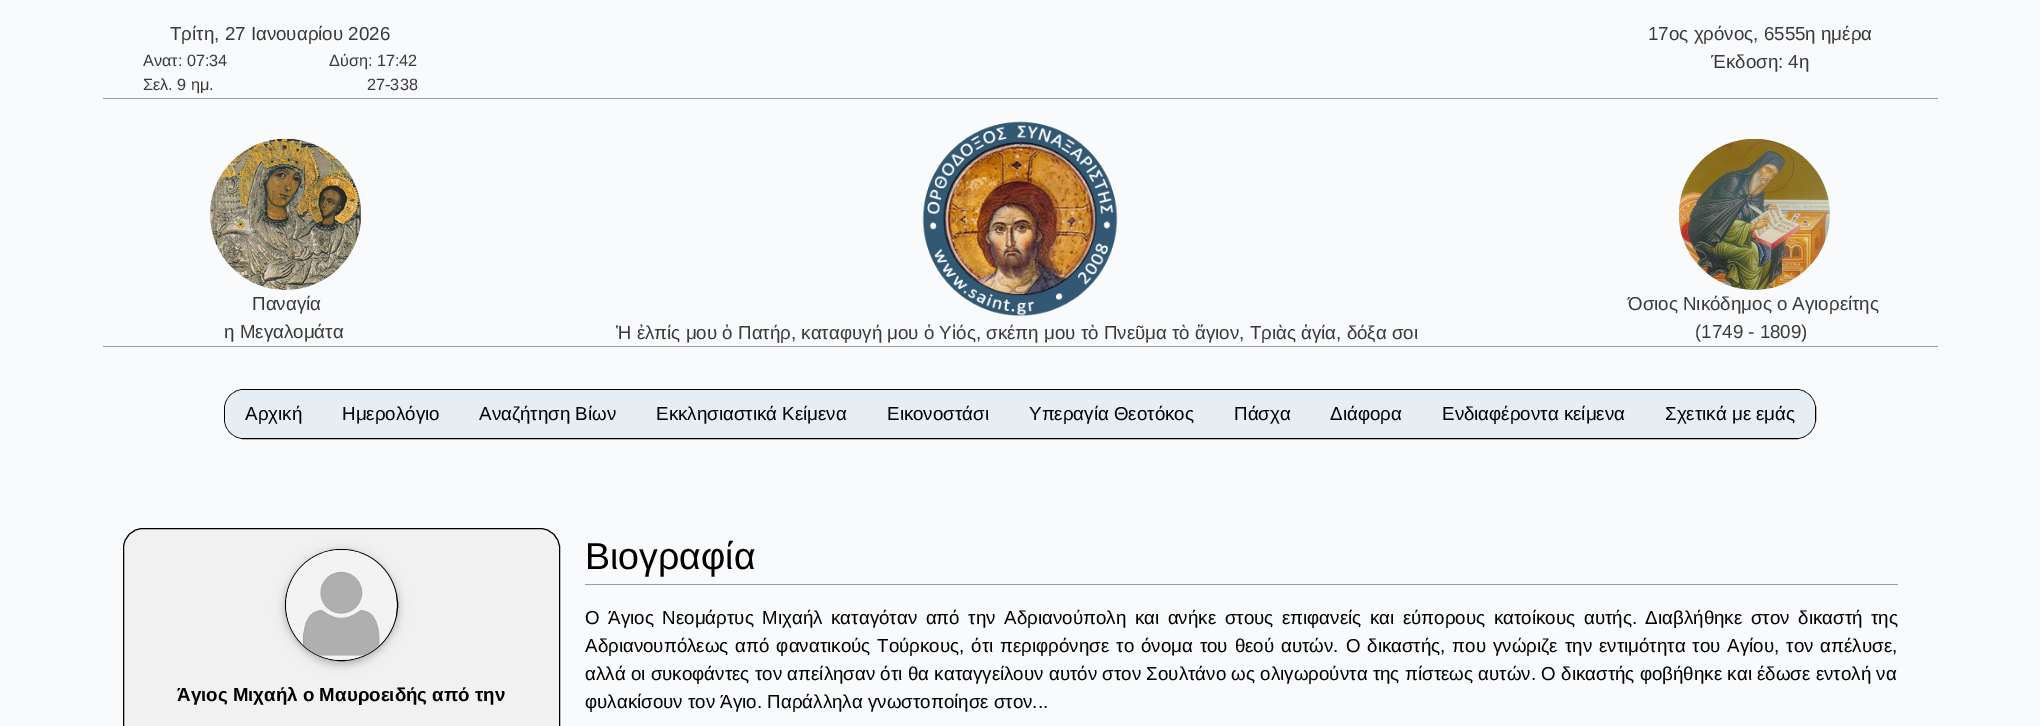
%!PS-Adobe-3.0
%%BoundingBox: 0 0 2040 726
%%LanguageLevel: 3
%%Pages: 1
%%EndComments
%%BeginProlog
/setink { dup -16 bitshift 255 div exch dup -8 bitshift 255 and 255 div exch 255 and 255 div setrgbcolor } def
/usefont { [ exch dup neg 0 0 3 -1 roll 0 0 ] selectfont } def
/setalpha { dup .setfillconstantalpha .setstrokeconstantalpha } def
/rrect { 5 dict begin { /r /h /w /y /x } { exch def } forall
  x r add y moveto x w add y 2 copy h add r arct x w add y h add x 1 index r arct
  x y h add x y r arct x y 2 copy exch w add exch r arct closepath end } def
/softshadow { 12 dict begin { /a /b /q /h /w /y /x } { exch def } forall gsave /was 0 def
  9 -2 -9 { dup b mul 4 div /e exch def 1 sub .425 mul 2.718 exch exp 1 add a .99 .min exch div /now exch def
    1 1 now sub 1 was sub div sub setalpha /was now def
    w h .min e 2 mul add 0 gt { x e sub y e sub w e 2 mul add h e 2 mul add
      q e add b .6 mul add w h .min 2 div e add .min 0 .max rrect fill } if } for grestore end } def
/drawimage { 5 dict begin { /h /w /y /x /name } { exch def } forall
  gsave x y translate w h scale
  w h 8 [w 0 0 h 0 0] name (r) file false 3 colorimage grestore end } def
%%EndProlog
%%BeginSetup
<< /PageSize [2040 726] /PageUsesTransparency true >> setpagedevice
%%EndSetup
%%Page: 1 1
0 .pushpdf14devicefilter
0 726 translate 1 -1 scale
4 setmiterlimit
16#F8FAFC setink
0 0 2040 726 rectfill
16#9E9E9E setink
103 98 1835 1 rectfill
/LiberationSans-Regular 18.75 usefont
16#3A3A3A setink
170 40 moveto (Τρίτη, 27 Ιανουαρίου 2026) show
/LiberationSans-Regular 16.25 usefont
[
    [(Ανατ: 07:34) 143 66]
    [(Δύση: 17:42) 329 66]
    [(Σελ. 9 ημ.) 143 90]
    [(27-338) 367 90]
] { aload pop moveto show } forall
/LiberationSans-Regular 18.75 usefont
1648 40 moveto (17ος χρόνος, 6555η ημέρα) show
1711 68 moveto (Έκδοση: 4η) show
16#9E9E9E setink
103 346 1835 1 rectfill
(img1.raw) 210 138 152 152 drawimage
16#3A3A3A setink
252 310 moveto (Παναγία) show
224 338 moveto (η Μεγαλομάτα) show
(img2.raw) 922 120 196 197 drawimage
616 339 moveto (Ἡ ἐλπίς μου ὁ Πατήρ, καταφυγή μου ὁ Υἱός, σκέπη μου τὸ Πνεῦμα τὸ ἅγιον, Τριὰς ἁγία, δόξα σοι) show
(img3.raw) 1678 138 152 152 drawimage
1628 310 moveto (Όσιος Νικόδημος ο Αγιορείτης) show
1695 338 moveto (\(1749 - 1809\)) show
16#000000 setink
224.5 389.5 1591 49 19.5 rrect stroke
16#E6EEF4 setink
244 390 moveto 321 390 lineto 321 438 lineto 244 438 lineto 233.5 438 225 429.5 225 419 curveto 225 409 lineto 225 398.5 233.5 390 244 390 curveto closepath fill
16#000000 setink
245 420 moveto (Αρχική) show
16#E6EEF4 setink
321 390 1324 48 rectfill
16#000000 setink
[
    [(Ημερολόγιο) 342 420]
    [(Αναζήτηση Βίων) 479 420]
    [(Εκκλησιαστικά Κείμενα) 656 420]
    [(Εικονοστάσι) 887 420]
    [(Υπεραγία Θεοτόκος) 1029 420]
    [(Πάσχα) 1234 420]
    [(Διάφορα) 1330 420]
    [(Ενδιαφέροντα κείμενα) 1442 420]
] { aload pop moveto show } forall
16#E6EEF4 setink
1645 390 moveto 1796 390 lineto 1806.5 390 1815 398.5 1815 409 curveto 1815 419 lineto 1815 429.5 1806.5 438 1796 438 curveto 1645 438 lineto closepath fill
16#000000 setink
1665 420 moveto (Σχετικά με εμάς) show
16#F1F1F1 setink
123.5 528.5 436 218 19.5 rrect gsave fill grestore
16#000000 setink
stroke
285 551 113 113 56.5 6 0.12 softshadow
gsave
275 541 moveto 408 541 lineto 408 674 lineto 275 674 lineto closepath 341 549 moveto 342 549 lineto 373 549 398 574 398 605 curveto 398 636 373 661 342 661 curveto 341 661 lineto 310 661 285 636 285 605 curveto 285 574 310 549 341 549 curveto closepath eoclip newpath
285 551 113 113 56.5 3 0.16 softshadow
grestore
285.5 549.5 112 111 55.5 rrect stroke
(img4.raw) 286 550 110 110 drawimage
/LiberationSans-Bold 18.75 usefont
177 701 moveto (Άγιος Μιχαήλ ο Μαυροειδής από την) show
16#9E9E9E setink
585 584 1313 1 rectfill
/LiberationSans-Regular 37.5 usefont
16#000000 setink
585 569 moveto (Βιογραφία) show
/LiberationSans-Regular 18.75 usefont
585 624 moveto 3.4 0 32 (Ο Άγιος Νεομάρτυς Μιχαήλ καταγόταν από την Αδριανούπολη και ανήκε στους επιφανείς και εύπορους κατοίκους αυτής. Διαβλήθηκε στον δικαστή της) widthshow
585 652 moveto 1.7 0 32 (Αδριανουπόλεως από φανατικούς Τούρκους, ότι περιφρόνησε το όνομα του θεού αυτών. Ο δικαστής, που γνώριζε την εντιμότητα του Αγίου, τον απέλυσε,) widthshow
585 680 moveto 0.1 0 32 (αλλά οι συκοφάντες τον απείλησαν ότι θα καταγγείλουν αυτόν στον Σουλτάνο ως ολιγωρούντα της πίστεως αυτών. Ο δικαστής φοβήθηκε και έδωσε εντολή να) widthshow
585 708 moveto (φυλακίσουν τον Άγιο. Παράλληλα γνωστοποίησε στον...) show
.poppdf14devicefilter showpage
%%EOF
